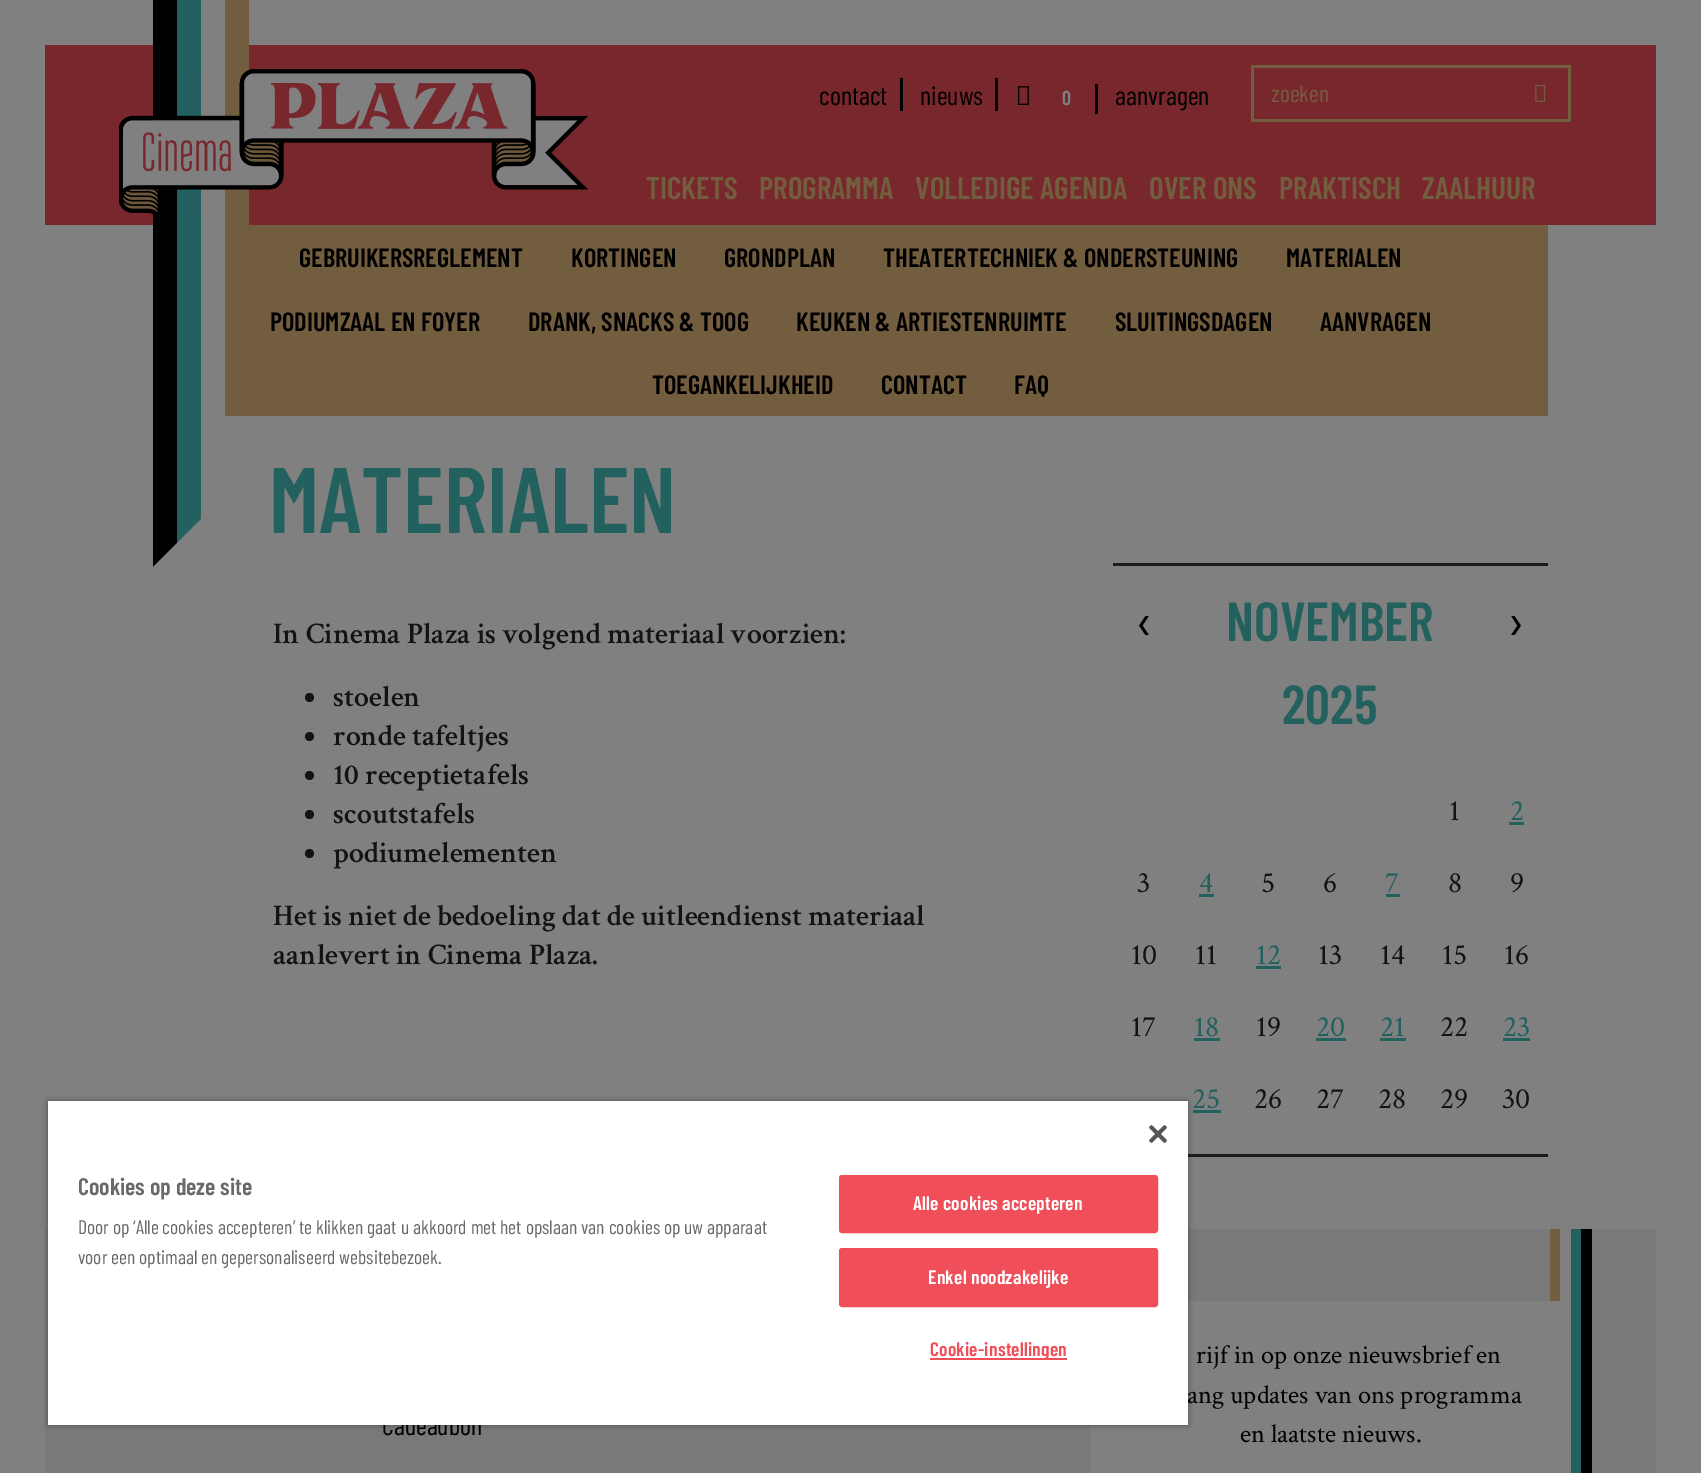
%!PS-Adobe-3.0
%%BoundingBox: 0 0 1701 1473
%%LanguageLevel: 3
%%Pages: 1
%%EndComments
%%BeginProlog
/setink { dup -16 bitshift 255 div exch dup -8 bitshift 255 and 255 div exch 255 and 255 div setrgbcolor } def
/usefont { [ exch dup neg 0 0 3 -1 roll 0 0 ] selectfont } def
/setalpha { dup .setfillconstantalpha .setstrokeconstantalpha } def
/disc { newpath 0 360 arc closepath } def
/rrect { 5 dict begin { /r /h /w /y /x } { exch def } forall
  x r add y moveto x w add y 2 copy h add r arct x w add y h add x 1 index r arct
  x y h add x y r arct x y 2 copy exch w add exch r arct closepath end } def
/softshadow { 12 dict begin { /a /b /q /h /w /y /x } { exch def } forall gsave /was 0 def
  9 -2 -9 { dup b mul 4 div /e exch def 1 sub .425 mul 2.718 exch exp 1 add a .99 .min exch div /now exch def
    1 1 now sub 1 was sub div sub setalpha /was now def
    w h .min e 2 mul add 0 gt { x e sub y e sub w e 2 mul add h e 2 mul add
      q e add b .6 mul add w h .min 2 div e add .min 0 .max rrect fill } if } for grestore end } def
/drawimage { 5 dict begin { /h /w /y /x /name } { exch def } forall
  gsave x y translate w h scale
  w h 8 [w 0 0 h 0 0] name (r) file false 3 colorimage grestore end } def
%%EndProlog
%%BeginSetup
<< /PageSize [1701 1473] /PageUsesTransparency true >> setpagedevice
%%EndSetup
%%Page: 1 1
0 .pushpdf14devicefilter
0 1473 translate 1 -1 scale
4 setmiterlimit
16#808080 setink
0 0 1701 1473 rectfill
[
    [45 45 1611 180 16#78272C]
    [177 0 24 225 16#23615F]
    [201 45 24 180 16#808080]
    [153 0 24 225 16#000000]
    [225 0 24 225 16#735D3F]
] { aload pop setink rectfill } forall
(img1.raw) 119 69 469 146 drawimage
/BarlowCondensed-Regular 26.4 usefont
16#000000 setink
819 105 moveto (contact) show
900 78 3 33 rectfill
920 105 moveto (nieuws) show
995 78 3 33 rectfill
1095 84 3 30 rectfill
(img2.raw) 1018 86 11 19 drawimage
/BarlowCondensed-SemiBold 20 usefont
16#808080 setink
1062 105 moveto (0) show
/BarlowCondensed-Regular 26.4 usefont
16#000000 setink
1115 105 moveto (aanvragen) show
[
    [1251 65 320 3 16#735D3F]
    [1251 119 272 3 16#735D3F]
    [1251 65 3 57 16#735D3F]
] { aload pop setink rectfill } forall
/BarlowCondensed-Regular 24 usefont
1271 102 moveto (zoeken) show
1568 65 3 57 rectfill
1523 119 48 3 rectfill
(img3.raw) 1535 84 11 18 drawimage
/BarlowCondensed-SemiBold 31.25 usefont
[
    [(TICKETS) 646 199]
    [(PROGRAMMA) 759 199]
    [(VOLLEDIGE AGENDA) 915 199]
    [(OVER ONS) 1149 199]
    [(PRAKTISCH) 1279 199]
    [(ZAALHUUR) 1422 199]
] { aload pop moveto show } forall
[
    [225 225 1323 191 16#735D3F]
    [177 225 24 318 16#23615F]
    [153 225 24 338 16#000000]
] { aload pop setink rectfill } forall
/BarlowCondensed-SemiBold 26.4 usefont
[
    [(GEBRUIKERSREGLEMENT) 299 267]
    [(KORTINGEN) 571 267]
    [(GRONDPLAN) 724 267]
    [(THEATERTECHNIEK & ONDERSTEUNING) 883 267]
    [(MATERIALEN) 1286 267]
    [(PODIUMZAAL EN FOYER) 270 331]
    [(DRANK, SNACKS & TOOG) 528 331]
    [(KEUKEN & ARTIESTENRUIMTE) 796 331]
    [(SLUITINGSDAGEN) 1115 331]
    [(AANVRAGEN) 1320 331]
    [(TOEGANKELIJKHEID) 652 394]
    [(CONTACT) 881 394]
    [(FAQ) 1014 394]
] { aload pop moveto show } forall
/BarlowCondensed-SemiBold 93 usefont
16#23615F setink
269 533 moveto (MATERIALEN) show
16#000000 setink
153 563 4 4 rectfill
16#808080 setink
207 603 moveto 117 603 lineto 207 513 lineto closepath fill
/CrimsonText-SemiBold 30 usefont
16#111315 setink
273 643 moveto (In Cinema Plaza is volgend materiaal voorzien:) show
309.5 697.5 4.5 disc fill
333 706 moveto (stoelen) show
309.5 736.5 4.5 disc fill
333 745 moveto (ronde tafeltjes) show
309.5 775.5 4.5 disc fill
333 784 moveto (10 receptietafels) show
309.5 814.5 4.5 disc fill
333 823 moveto (scoutstafels) show
309.5 853.5 4.5 disc fill
[
    [(podiumelementen) 333 862]
    [(Het is niet de bedoeling dat de uitleendienst materiaal) 273 925]
    [(aanlevert in Cinema Plaza.) 273 964]
] { aload pop moveto show } forall
16#1A1D20 setink
1113 563 435 3 rectfill
1188 1154 360 3 rectfill
/BarlowCondensed-Regular 55 usefont
16#000000 setink
1136 641 moveto (‹) show
/BarlowCondensed-SemiBold 55 usefont
16#23615F setink
1226 641 moveto (NOVEMBER) show
1282 724 moveto (2025) show
/BarlowCondensed-Regular 55 usefont
16#000000 setink
1507 641 moveto (›) show
/CrimsonText-Regular 30 usefont
16#111315 setink
1449 820 moveto (1) show
16#23615F setink
1510 820 moveto (2) show
1509 822 15 3 rectfill
16#111315 setink
1137 892 moveto (3) show
16#23615F setink
1199 892 moveto (4) show
1199 894 15 3 rectfill
16#111315 setink
1261 892 moveto (5) show
1323 892 moveto (6) show
16#23615F setink
1385 892 moveto (7) show
1386 894 14 3 rectfill
16#111315 setink
[
    [(8) 1448 892]
    [(9) 1510 892]
    [(10) 1131 964]
    [(11) 1195 964]
] { aload pop moveto show } forall
16#23615F setink
1256 964 moveto (12) show
1256 966 25 3 rectfill
16#111315 setink
[
    [(13) 1318 964]
    [(14) 1380 964]
    [(15) 1442 964]
    [(16) 1504 964]
    [(17) 1131 1036]
] { aload pop moveto show } forall
16#23615F setink
1194 1036 moveto (18) show
1194 1038 26 3 rectfill
16#111315 setink
1256 1036 moveto (19) show
16#23615F setink
1316 1036 moveto (20) show
1316 1038 30 3 rectfill
1380 1036 moveto (21) show
1380 1038 26 3 rectfill
16#111315 setink
1440 1036 moveto (22) show
16#23615F setink
1503 1036 moveto (23) show
1503 1038 27 3 rectfill
1192 1108 moveto (25) show
1193 1110 28 3 rectfill
16#111315 setink
[
    [(26) 1254 1108]
    [(27) 1316 1108]
    [(28) 1378 1108]
    [(29) 1440 1108]
    [(30) 1502 1108]
] { aload pop moveto show } forall
16#797979 setink
45 1229 1611 244 rectfill
/BarlowCondensed-Regular 26.4 usefont
16#000000 setink
382 1435 moveto (Cadeaubon) show
16#808080 setink
1091 1301 480 172 rectfill
/CrimsonText-Regular 26.4 usefont
16#000000 setink
[
    [(rijf in op onze nieuwsbrief en) 1196 1363]
    [(ang updates van ons programma) 1187 1403]
    [(en laatste nieuws.) 1240 1442]
] { aload pop moveto show } forall
[
    [1560 1229 11 72 16#808080]
    [1550 1229 10 72 16#735D3F]
    [1571 1229 10 244 16#23615F]
    [1581 1229 11 244 16#000000]
] { aload pop setink rectfill } forall
48 1101 1140 324 0 3 0.35 softshadow
16#FFFFFF setink
48 1101 1140 324 rectfill
(img4.raw) 1149 1125 18 18 drawimage
/BarlowCondensed-SemiBold 24 usefont
16#696969 setink
78 1195 moveto (Cookies op deze site) show
/BarlowCondensed-Regular 19.5 usefont
78 1234 moveto (Door op ‘Alle cookies accepteren’ te klikken gaat u akkoord met het opslaan van cookies op uw apparaat) show
78 1264 moveto (voor een optimaal en gepersonaliseerd websitebezoek.) show
16#F04E58 setink
840 1176 317 56 2 rrect gsave fill grestore
2 setlinewidth
stroke
/BarlowCondensed-SemiBold 19.5 usefont
16#FFFFFF setink
913 1210 moveto 0.2 0 (Alle cookies accepteren) ashow
16#F04E58 setink
840 1249 317 57 2 rrect gsave fill grestore
stroke
16#FFFFFF setink
928 1284 moveto 0.2 0 (Enkel noodzakelijke) ashow
16#F04E58 setink
930 1358 137 2 rectfill
930 1356 moveto 0.2 0 (Cookie-instellingen) ashow
.poppdf14devicefilter showpage
%%EOF
